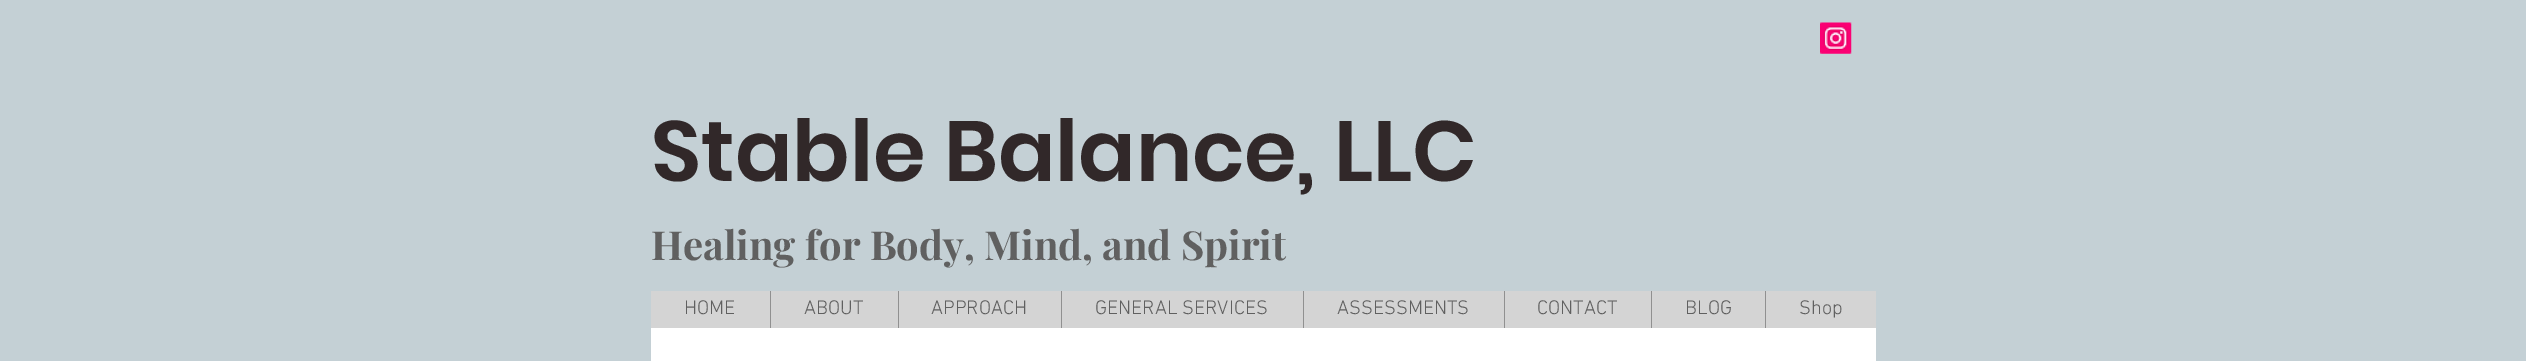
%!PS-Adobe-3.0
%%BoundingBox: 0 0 2526 361
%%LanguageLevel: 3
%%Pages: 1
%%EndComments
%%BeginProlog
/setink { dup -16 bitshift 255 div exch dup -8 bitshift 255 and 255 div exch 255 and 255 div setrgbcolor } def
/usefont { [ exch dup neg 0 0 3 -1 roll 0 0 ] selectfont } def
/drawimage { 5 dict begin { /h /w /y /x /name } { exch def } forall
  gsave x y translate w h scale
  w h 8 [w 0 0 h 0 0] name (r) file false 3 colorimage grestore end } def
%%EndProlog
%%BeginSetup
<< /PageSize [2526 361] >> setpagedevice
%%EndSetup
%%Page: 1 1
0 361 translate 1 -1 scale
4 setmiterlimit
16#C4D0D5 setink
0 0 2526 361 rectfill
(img1.raw) 1820 22 32 32 drawimage
/Poppins-SemiBold 85 usefont
16#312829 setink
651 181 moveto (Stable Balance, LLC) show
/PlayfairDisplay-Bold 40 usefont
16#606060 setink
651 260 moveto (Healing for Body, Mind, and Spirit) show
16#D4D4D4 setink
651 291 1225 37 rectfill
/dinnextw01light-Light 20 usefont
16#606060 setink
684 314 moveto (HOME) show
16#909090 setink
770 291 1 37 rectfill
16#606060 setink
804 314 moveto (ABOUT) show
16#909090 setink
898 291 1 37 rectfill
16#606060 setink
931 314 moveto (APPROACH) show
16#909090 setink
1061 291 1 37 rectfill
16#606060 setink
1095 314 moveto (GENERAL SERVICES) show
16#909090 setink
1303 291 1 37 rectfill
16#606060 setink
1337 314 moveto (ASSESSMENTS) show
16#909090 setink
1504 291 1 37 rectfill
16#606060 setink
1537 314 moveto (CONTACT) show
16#909090 setink
1651 291 1 37 rectfill
16#606060 setink
1685 314 moveto (BLOG) show
16#909090 setink
1765 291 1 37 rectfill
16#606060 setink
1799 314 moveto (Shop) show
16#FFFFFF setink
651 328 1225 33 rectfill
showpage
%%EOF
